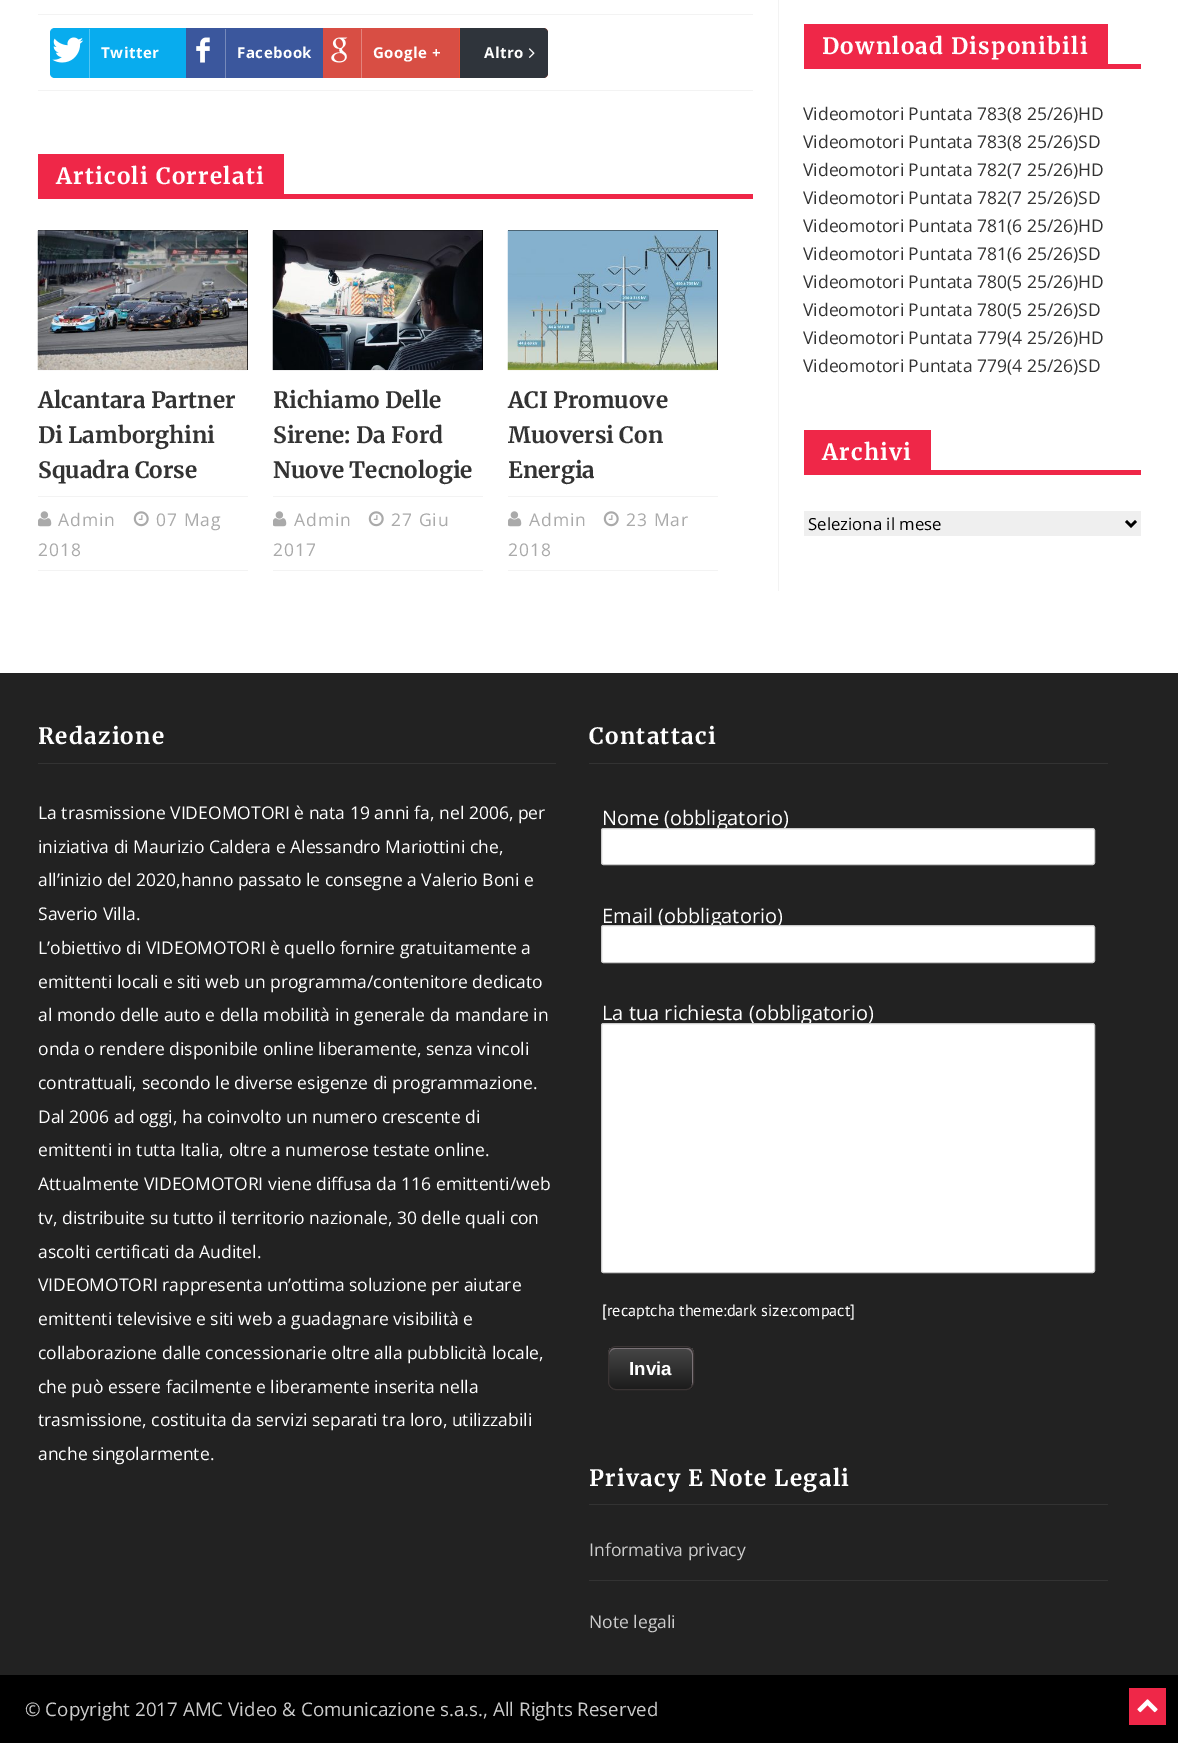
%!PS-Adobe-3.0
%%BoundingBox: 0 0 1178 1743
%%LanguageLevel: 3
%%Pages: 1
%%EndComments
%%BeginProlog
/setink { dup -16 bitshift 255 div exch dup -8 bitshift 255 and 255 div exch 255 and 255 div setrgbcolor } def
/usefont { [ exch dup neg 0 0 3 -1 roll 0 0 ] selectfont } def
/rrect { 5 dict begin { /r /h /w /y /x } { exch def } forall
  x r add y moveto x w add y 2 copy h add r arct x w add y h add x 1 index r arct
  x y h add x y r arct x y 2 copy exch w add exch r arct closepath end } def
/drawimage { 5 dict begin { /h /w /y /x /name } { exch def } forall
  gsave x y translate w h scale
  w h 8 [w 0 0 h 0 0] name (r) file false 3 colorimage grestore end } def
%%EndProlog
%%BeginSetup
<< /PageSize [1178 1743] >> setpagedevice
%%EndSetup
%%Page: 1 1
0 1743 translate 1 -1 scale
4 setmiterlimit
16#FFFFFF setink
0 0 1178 1743 rectfill
16#F3F3F3 setink
38 14 715 1 rectfill
38 90 715 1 rectfill
16#08ACEE setink
55 28 moveto 186 28 lineto 186 78 lineto 55 78 lineto 52 78 50 76 50 73 curveto 50 33 lineto 50 30 52 28 55 28 curveto closepath fill
16#52C5F3 setink
89 29 1 49 rectfill
(img1.raw) 52 37 32 26 drawimage
/OpenSans-Bold 15 usefont
16#FFFFFF setink
101 58 moveto 0.5 0 (Twitter) ashow
16#3B579D setink
186 28 137 50 rectfill
16#7689BA setink
225 29 1 49 rectfill
(img2.raw) 196 37 14 26 drawimage
16#FFFFFF setink
237 58 moveto 0.5 0 (Facebook) ashow
16#D84E44 setink
323 28 136 50 rectfill
16#E4837C setink
361 29 1 49 rectfill
(img3.raw) 331 37 17 26 drawimage
16#FFFFFF setink
373 58 moveto 0.5 0 (Google +) ashow
16#EA5037 setink
459 28 moveto 543 28 lineto 546 28 548 30 548 33 curveto 548 73 lineto 548 76 546 78 543 78 curveto 459 78 lineto closepath fill
16#2F343B setink
460 28 moveto 543 28 lineto 546 28 548 30 548 33 curveto 548 73 lineto 548 76 546 78 543 78 curveto 460 78 lineto closepath fill
16#FFFFFF setink
484 58 moveto 0.5 0 (Altro) ashow
(img4.raw) 528 48 7 10 drawimage
16#EF2748 setink
38 194 715 5 rectfill
38 154 246 40 rectfill
/Merriweather-Bold 22.5 usefont
16#FFFFFF setink
56 184 moveto 1.25 0 (Articoli Correlati) ashow
16#000000 setink
38 230 210 140 rectfill
(img5.raw) 37 230 211 141 drawimage
16#333333 setink
[
    [(Alcantara Partner) 38 408]
    [(Di Lamborghini) 38 443]
    [(Squadra Corse) 38 478]
] { aload pop moveto show } forall
16#F3F3F3 setink
38 496 210 1 rectfill
38 570 210 1 rectfill
(img6.raw) 38 511 14 16 drawimage
/OpenSans-Regular 17.5 usefont
16#AAAAAA setink
58 526 moveto 1 0 (Admin) ashow
(img7.raw) 133 511 16 16 drawimage
156 526 moveto 1 0 (07 Mag) ashow
38 556 moveto 1 0 (2018) ashow
16#000000 setink
273 230 210 140 rectfill
(img8.raw) 272 230 211 141 drawimage
/Merriweather-Bold 22.5 usefont
16#333333 setink
[
    [(Richiamo Delle) 273 408]
    [(Sirene: Da Ford) 273 443]
    [(Nuove Tecnologie) 273 478]
] { aload pop moveto show } forall
16#F3F3F3 setink
273 496 210 1 rectfill
273 570 210 1 rectfill
(img6.raw) 273 511 14 16 drawimage
/OpenSans-Regular 17.5 usefont
16#AAAAAA setink
294 526 moveto 1 0 (Admin) ashow
(img7.raw) 368 511 16 16 drawimage
391 526 moveto 1 0 (27 Giu) ashow
273 556 moveto 1 0 (2017) ashow
16#000000 setink
508 230 210 140 rectfill
(img9.raw) 507 230 211 141 drawimage
/Merriweather-Bold 22.5 usefont
16#333333 setink
[
    [(ACI Promuove) 508 408]
    [(Muoversi Con) 508 443]
    [(Energia) 508 478]
] { aload pop moveto show } forall
16#F3F3F3 setink
508 496 210 1 rectfill
508 570 210 1 rectfill
(img6.raw) 508 511 14 16 drawimage
/OpenSans-Regular 17.5 usefont
16#AAAAAA setink
529 526 moveto 1 0 (Admin) ashow
(img7.raw) 603 511 16 16 drawimage
626 526 moveto 1 0 (23 Mar) ashow
508 556 moveto 1 0 (2018) ashow
[
    [778 0 1 591 16#F3F3F3]
    [804 64 337 5 16#EF2748]
    [804 24 304 40 16#EF2748]
] { aload pop setink rectfill } forall
/Merriweather-Bold 22.5 usefont
16#FFFFFF setink
822 54 moveto 1.25 0 (Download Disponibili) ashow
/OpenSans-Regular 17.5 usefont
16#333333 setink
[
    [(Videomotori Puntata 783\(8 25/26\)HD) 803 120]
    [(Videomotori Puntata 783\(8 25/26\)SD) 803 148]
    [(Videomotori Puntata 782\(7 25/26\)HD) 803 176]
    [(Videomotori Puntata 782\(7 25/26\)SD) 803 204]
    [(Videomotori Puntata 781\(6 25/26\)HD) 803 232]
    [(Videomotori Puntata 781\(6 25/26\)SD) 803 260]
    [(Videomotori Puntata 780\(5 25/26\)HD) 803 288]
    [(Videomotori Puntata 780\(5 25/26\)SD) 803 316]
    [(Videomotori Puntata 779\(4 25/26\)HD) 803 344]
    [(Videomotori Puntata 779\(4 25/26\)SD) 803 372]
] { aload pop moveto show } forall
16#EF2748 setink
804 470 337 5 rectfill
804 430 127 40 rectfill
/Merriweather-Bold 22.5 usefont
16#FFFFFF setink
822 460 moveto 1.25 0 (Archivi) ashow
16#EFEFEF setink
804 511 337 25 rectfill
16#000000 setink
2.5 setlinewidth
1126 521 moveto 1131 526 lineto 1136 521 lineto stroke
/OpenSans-Regular 16.75 usefont
808 530 moveto (Seleziona il mese) show
16#222222 setink
0 673 1178 1002 rectfill
16#333333 setink
38 763 518 1 rectfill
/Merriweather-Bold 22.5 usefont
16#FFFFFF setink
38 744 moveto 1.25 0 (Redazione) ashow
/OpenSans-Regular 17.5 usefont
[
    [(La trasmissione VIDEOMOTORI è nata 19 anni fa, nel 2006, per) 38 819]
    [(iniziativa di Maurizio Caldera e Alessandro Mariottini che,) 38 853]
    [(all’inizio del 2020,hanno passato le consegne a Valerio Boni e) 38 886]
    [(Saverio Villa.) 38 920]
    [(L’obiettivo di VIDEOMOTORI è quello fornire gratuitamente a) 38 954]
    [(emittenti locali e siti web un programma/contenitore dedicato) 38 988]
    [(al mondo delle auto e della mobilità in generale da mandare in) 38 1021]
    [(onda o rendere disponibile online liberamente, senza vincoli) 38 1055]
    [(contrattuali, secondo le diverse esigenze di programmazione.) 38 1089]
    [(Dal 2006 ad oggi, ha coinvolto un numero crescente di) 38 1123]
    [(emittenti in tutta Italia, oltre a numerose testate online.) 38 1156]
    [(Attualmente VIDEOMOTORI viene diffusa da 116 emittenti/web) 38 1190]
    [(tv, distribuite su tutto il territorio nazionale, 30 delle quali con) 38 1224]
    [(ascolti certificati da Auditel.) 38 1258]
    [(VIDEOMOTORI rappresenta un’ottima soluzione per aiutare) 38 1291]
    [(emittenti televisive e siti web a guadagnare visibilità e) 38 1325]
    [(collaborazione dalle concessionarie oltre alla pubblicità locale,) 38 1359]
    [(che può essere facilmente e liberamente inserita nella) 38 1393]
    [(trasmissione, costituita da servizi separati tra loro, utilizzabili) 38 1426]
    [(anche singolarmente.) 38 1460]
] { aload pop moveto show } forall
16#333333 setink
589 763 519 1 rectfill
/Merriweather-Bold 22.5 usefont
16#FFFFFF setink
589 744 moveto 1.25 0 (Contattaci) ashow
/OpenSans-Regular 20 usefont
602 825 moveto (Nome \(obbligatorio\)) show
601.5 828.5 493 36 2 rrect gsave fill grestore
16#CCCCCC setink
1 setlinewidth
stroke
16#FFFFFF setink
602 923 moveto (Email \(obbligatorio\)) show
601.5 925.5 493 37 2 rrect gsave fill grestore
16#CCCCCC setink
stroke
16#FFFFFF setink
602 1020 moveto (La tua richiesta \(obbligatorio\)) show
601.5 1023.5 493 249 2 rrect gsave fill grestore
16#CCCCCC setink
stroke
/PTSans-Regular 16.25 usefont
16#FFFFFF setink
602 1316 moveto ([recaptcha theme:dark size:compact]) show
gsave
608 1346 86 44 8 rrect clip newpath
gsave 608 1346 moveto 694 1346 lineto 694 1348 lineto 608 1348 lineto closepath clip newpath
<< /ShadingType 2 /ColorSpace /DeviceRGB /Coords [609 1306 609 1348] /Extend [true true] /Function << /FunctionType 3 /Domain [0 1] /Functions [<< /FunctionType 2 /Domain [0 1] /C0 [0.267 0.267 0.267] /C1 [0.267 0.267 0.267] /N 1 >> << /FunctionType 2 /Domain [0 1] /C0 [0.267 0.267 0.267] /C1 [0.11 0.11 0.11] /N 1 >>] /Bounds [0.05] /Encode [0 1 0 1] >> >> shfill grestore
gsave 608 1348 moveto 694 1348 lineto 694 1389 lineto 608 1389 lineto closepath clip newpath
<< /ShadingType 2 /ColorSpace /DeviceRGB /Coords [609 1348 609 1389] /Extend [true true] /Function << /FunctionType 3 /Domain [0 1] /Functions [<< /FunctionType 2 /Domain [0 1] /C0 [0.267 0.267 0.267] /C1 [0.267 0.267 0.267] /N 1 >> << /FunctionType 2 /Domain [0 1] /C0 [0.267 0.267 0.267] /C1 [0.11 0.11 0.11] /N 1 >>] /Bounds [0.05] /Encode [0 1 0 1] >> >> shfill grestore
grestore
16#7A7277 setink
615 1349 moveto 686 1349 lineto 690 1349 692 1352 692 1355 curveto 692 1384 lineto 692 1385 692 1386 691 1387 curveto 692 1386 693 1385 693 1383 curveto 693 1354 lineto 693 1351 690 1348 687 1348 curveto 615 1348 lineto 612 1348 609 1351 609 1354 curveto 609 1355 lineto 609 1352 612 1349 615 1349 curveto closepath fill
16#3A3434 setink
608.5 1346.5 85 43 7.5 rrect stroke
/LiberationSans-Bold 18.75 usefont
16#FFFFFF setink
629 1375 moveto (Invia) show
16#333333 setink
589 1504 519 1 rectfill
/Merriweather-Bold 22.5 usefont
16#FFFFFF setink
589 1486 moveto 1.25 0 (Privacy E Note Legali) ashow
16#333333 setink
589 1580 519 1 rectfill
/OpenSans-Regular 17.5 usefont
16#CCCCCC setink
589 1556 moveto (Informativa privacy) show
589 1628 moveto (Note legali) show
16#000000 setink
0 1675 1178 68 rectfill
/OpenSans-Regular 18.75 usefont
16#CCCCCC setink
25 1716 moveto (© Copyright 2017 AMC Video & Comunicazione s.a.s., All Rights Reserved) show
16#EF2748 setink
1129 1688 37 37 rectfill
(img10.raw) 1137 1699 21 14 drawimage
showpage
%%EOF
